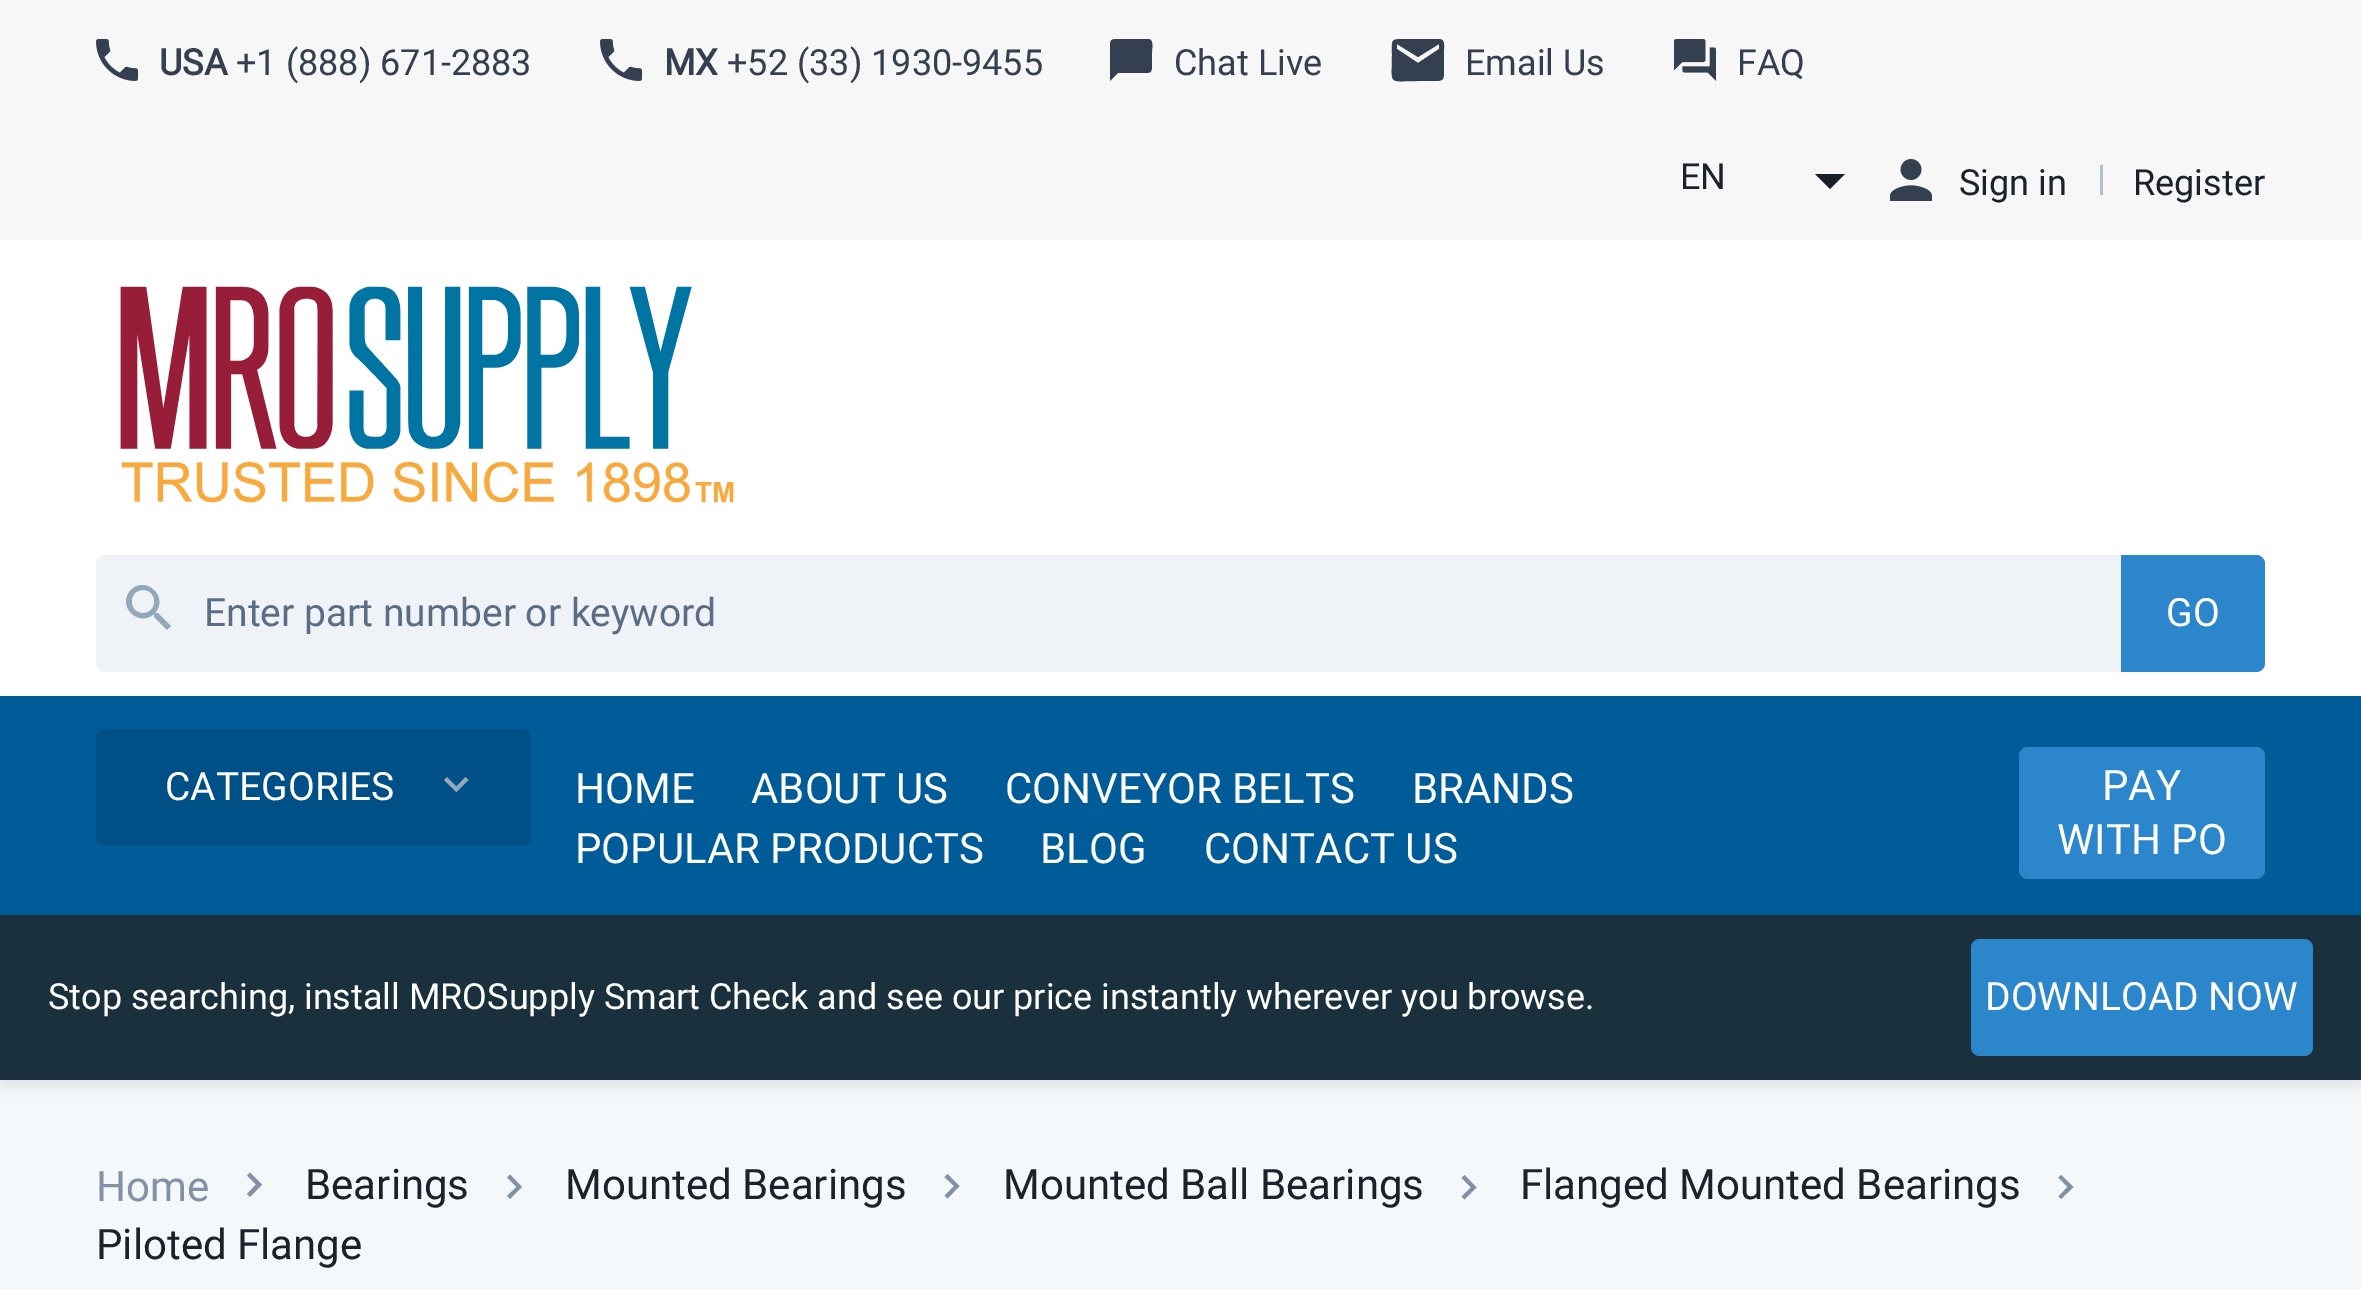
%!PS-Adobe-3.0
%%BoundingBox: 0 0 2361 1289
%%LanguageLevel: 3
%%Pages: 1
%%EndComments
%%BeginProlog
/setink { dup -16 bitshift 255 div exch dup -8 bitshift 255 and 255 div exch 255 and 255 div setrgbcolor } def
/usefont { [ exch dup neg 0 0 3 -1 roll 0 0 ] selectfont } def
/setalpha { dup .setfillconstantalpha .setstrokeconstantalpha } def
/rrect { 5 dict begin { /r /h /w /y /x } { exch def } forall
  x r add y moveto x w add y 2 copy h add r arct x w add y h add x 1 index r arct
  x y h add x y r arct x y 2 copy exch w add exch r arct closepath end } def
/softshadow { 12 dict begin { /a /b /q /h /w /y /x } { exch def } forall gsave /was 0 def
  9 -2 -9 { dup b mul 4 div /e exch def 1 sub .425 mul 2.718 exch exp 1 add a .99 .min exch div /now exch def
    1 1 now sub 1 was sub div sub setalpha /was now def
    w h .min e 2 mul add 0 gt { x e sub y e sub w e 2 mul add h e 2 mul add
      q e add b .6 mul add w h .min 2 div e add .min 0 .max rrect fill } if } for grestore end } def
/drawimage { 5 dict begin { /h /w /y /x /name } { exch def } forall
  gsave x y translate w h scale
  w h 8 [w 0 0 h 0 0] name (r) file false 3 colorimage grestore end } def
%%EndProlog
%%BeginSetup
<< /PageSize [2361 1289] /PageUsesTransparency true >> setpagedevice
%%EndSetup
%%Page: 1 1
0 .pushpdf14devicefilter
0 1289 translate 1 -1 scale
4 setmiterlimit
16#F5F8FB setink
0 0 2361 1289 rectfill
16#1C222B setink
0 6 2361 1080 0 7.5 0.1 softshadow
16#FFFFFF setink
0 240 2361 456 rectfill
16#F7F7F7 setink
0 0 2361 240 rectfill
(img1.raw) 96 39 42 42 drawimage
/Roboto-Bold 36 usefont
16#343F50 setink
159 75 moveto (USA) show
/Roboto-Regular 36 usefont
236 75 moveto (+1 \(888\) 671-2883) show
(img1.raw) 600 39 42 42 drawimage
/Roboto-Bold 36 usefont
664 75 moveto (MX) show
/Roboto-Regular 36 usefont
727 75 moveto (+52 \(33\) 1930-9455) show
1148 39 moveto 1120 39 lineto 1110 39 1110 39 1110 49 curveto 1110 81 lineto 1118 73 lineto 1143 73 lineto 1151 73 1152 73 1152 64 curveto 1152 52 lineto 1152 48 1154 39 1148 39 curveto closepath fill
1174 75 moveto (Chat Live) show
1439 39 moveto 1404 39 lineto 1390 39 1392 40 1392 55 curveto 1392 86 1387 81 1418 81 curveto 1432 81 lineto 1443 81 1444 81 1444 71 curveto 1444 49 lineto 1444 46 1445 39 1439 39 curveto closepath 1439 49 moveto 1418 63 lineto 1397 49 lineto 1397 44 lineto 1418 57 lineto 1439 44 lineto closepath fill
1465 75 moveto (Email Us) show
(img2.raw) 1674 39 42 42 drawimage
1737 75 moveto (FAQ) show
16#1C222B setink
1680 189 moveto (EN) show
16#191F28 setink
1815 174 moveto 1830 189 lineto 1845 174 lineto closepath fill
(img3.raw) 1890 159 42 42 drawimage
16#1C222B setink
1959 195 moveto (Sign in) show
16#B0BFCD setink
2100 165 3 30 rectfill
16#1C222B setink
2133 195 moveto (Register) show
(img4.raw) 120 286 614 217 drawimage
16#EFF2F6 setink
97.5 556.5 2166 114 7.5 rrect gsave fill grestore
3 setlinewidth
stroke
16#94A8BB setink
158 613 moveto 156 613 lineto 155 613 lineto 169 597 146 575 131 590 curveto 116 605 138 628 154 614 curveto 154 615 lineto 154 617 lineto 167 630 lineto 171 626 lineto closepath 143 613 moveto 128 613 128 590 143 590 curveto 158 590 158 613 143 613 curveto closepath fill
/Roboto-Regular 39 usefont
16#5B6C85 setink
204 626 moveto (Enter part number or keyword) show
16#2B86CC setink
2121 555 moveto 2256 555 lineto 2261 555 2265 559 2265 564 curveto 2265 663 lineto 2265 668 2261 672 2256 672 curveto 2121 672 lineto closepath fill
16#FFFFFF setink
2166 626 moveto (GO) show
16#005C98 setink
0 696 2361 219 rectfill
16#004F87 setink
96 729 435 117 9 rrect fill
16#FFFFFF setink
165 800 moveto (CATEGORIES) show
16#94A8BB setink
447 777 moveto 456.5 786.5 lineto 465.5 777 lineto 468.5 780 lineto 456.5 792 lineto 444 780 lineto closepath fill
/Roboto-Regular 42 usefont
16#FFFFFF setink
[
    [(HOME) 575 803]
    [(ABOUT US) 751 803]
    [(CONVEYOR BELTS) 1005 803]
    [(BRANDS) 1412 803]
    [(POPULAR PRODUCTS) 575 863]
    [(BLOG) 1040 863]
    [(CONTACT US) 1204 863]
] { aload pop moveto show } forall
16#2B86CC setink
2019 747 246 132 9 rrect fill
16#FFFFFF setink
2102 800 moveto (PAY) show
2057 854 moveto (WITH PO) show
16#1A313D setink
0 915 2361 165 rectfill
/Roboto-Regular 36 usefont
16#FFFFFF setink
48 1009 moveto (Stop searching, install MROSupply Smart Check and see our price instantly wherever you browse.) show
16#2B86CC setink
1971 939 342 117 9 rrect fill
/Roboto-Regular 39 usefont
16#FFFFFF setink
1985 1010 moveto (DOWNLOAD NOW) show
/Roboto-Regular 42 usefont
16#8291A5 setink
96 1201 moveto (Home) show
247 1194 moveto 256 1184.5 lineto 247 1175.5 lineto 250 1172.5 lineto 262 1184.5 lineto 250 1197 lineto closepath fill
16#1C222B setink
305 1199 moveto (Bearings) show
16#8291A5 setink
507 1196 moveto 516.5 1187 lineto 507 1177.5 lineto 510 1174.5 lineto 522 1187 lineto 510 1199 lineto closepath fill
16#1C222B setink
565 1199 moveto (Mounted Bearings) show
16#8291A5 setink
944.5 1195.5 moveto 954 1186 lineto 944.5 1177 lineto 947.5 1174 lineto 959.5 1186 lineto 947.5 1198.5 lineto closepath fill
16#1C222B setink
1003 1199 moveto (Mounted Ball Bearings) show
16#8291A5 setink
1461.5 1196.5 moveto 1471 1187.5 lineto 1461.5 1178 lineto 1464.5 1175 lineto 1476.5 1187.5 lineto 1464.5 1199.5 lineto closepath fill
16#1C222B setink
1520 1199 moveto (Flanged Mounted Bearings) show
16#8291A5 setink
2058.5 1196.5 moveto 2067.5 1187 lineto 2058.5 1177.5 lineto 2061 1175 lineto 2073.5 1187 lineto 2061 1199 lineto closepath fill
16#1C222B setink
96 1259 moveto (Piloted Flange) show
.poppdf14devicefilter showpage
%%EOF
